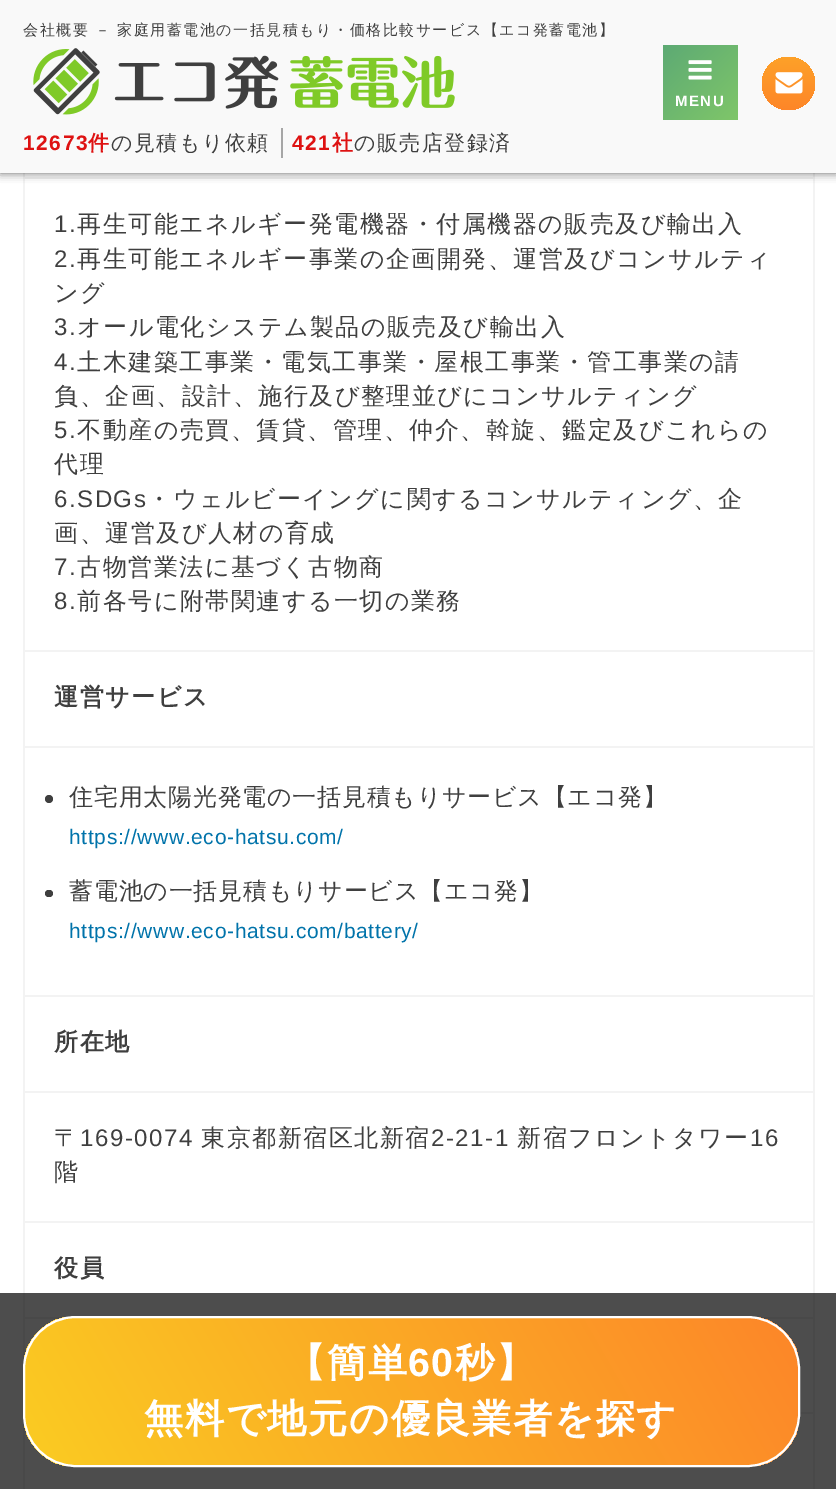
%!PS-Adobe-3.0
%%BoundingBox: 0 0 836 1489
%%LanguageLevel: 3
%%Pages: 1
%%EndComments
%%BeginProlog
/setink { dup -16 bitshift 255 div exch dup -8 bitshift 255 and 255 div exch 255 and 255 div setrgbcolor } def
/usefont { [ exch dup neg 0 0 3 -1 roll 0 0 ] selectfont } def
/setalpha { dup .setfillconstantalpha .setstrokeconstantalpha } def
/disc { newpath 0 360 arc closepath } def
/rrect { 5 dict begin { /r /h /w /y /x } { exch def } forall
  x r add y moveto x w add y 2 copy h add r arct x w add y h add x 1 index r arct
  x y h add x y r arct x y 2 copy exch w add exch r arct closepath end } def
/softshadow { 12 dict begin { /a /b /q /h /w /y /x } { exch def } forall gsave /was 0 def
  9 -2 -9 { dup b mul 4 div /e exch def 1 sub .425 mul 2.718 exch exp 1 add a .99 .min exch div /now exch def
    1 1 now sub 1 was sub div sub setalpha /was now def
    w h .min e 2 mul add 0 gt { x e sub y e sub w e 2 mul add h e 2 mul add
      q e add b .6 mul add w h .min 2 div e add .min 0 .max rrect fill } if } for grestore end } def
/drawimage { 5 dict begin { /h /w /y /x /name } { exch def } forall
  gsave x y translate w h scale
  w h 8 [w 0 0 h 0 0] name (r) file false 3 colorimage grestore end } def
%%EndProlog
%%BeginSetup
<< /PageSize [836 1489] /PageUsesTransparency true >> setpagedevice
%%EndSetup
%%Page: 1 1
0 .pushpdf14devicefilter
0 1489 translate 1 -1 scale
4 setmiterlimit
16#FFFFFF setink
0 0 836 1489 rectfill
[
    [0 1293 836 196 16#4D4D4D]
    [813 173 2 4 16#F3F3F3]
    [23 173 2 4 16#F3F3F3]
    [23 177 792 2 16#F3F3F3]
    [813 177 2 473 16#F3F3F3]
    [23 177 2 473 16#F3F3F3]
] { aload pop setink rectfill } forall
16#000000 setink
0 0 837 173 0 4.5 0.6 softshadow
16#F9F9F9 setink
0 0 836 173 rectfill
/WenQuanYiZenHei-Medium 15 usefont
16#3F3F3F setink
23 35 moveto 1.5 0 (会社概要 － 家庭用蓄電池の一括見積もり・価格比較サービス【エコ発蓄電池】) ashow
(img1.raw) 33 48 422 67 drawimage
gsave 663 45 moveto 738 45 lineto 738 120 lineto 663 120 lineto closepath clip newpath
<< /ShadingType 2 /ColorSpace /DeviceRGB /Coords [663 45 738 120] /Extend [true true] /Function << /FunctionType 2 /Domain [0 1] /C0 [0.365 0.667 0.455] /C1 [0.498 0.776 0.412] /N 1 >> >> shfill grestore
(img2.raw) 688 60 24 20 drawimage
/LiberationSans-Bold 15 usefont
16#FFFFFF setink
675 106 moveto 1.5 0 (MENU) ashow
gsave 788.5 83.5 26.5 disc clip newpath
<< /ShadingType 2 /ColorSpace /DeviceRGB /Coords [788 57 788 110] /Extend [true true] /Function << /FunctionType 2 /Domain [0 1] /C0 [0.992 0.631 0.157] /C1 [0.992 0.525 0.161] /N 1 >> >> shfill grestore
(img3.raw) 775 72 28 22 drawimage
/LiberationSans-Bold 21 usefont
16#DE1212 setink
23 150 moveto 1.5 0 (12673) ashow
/WenQuanYiZenHei-Bold 21 usefont
88 150 moveto 1.5 0 (件) ashow
/WenQuanYiZenHei-Medium 21 usefont
16#3F3F3F setink
111 150 moveto 1.5 0 (の見積もり依頼) ashow
16#A6A6A6 setink
281 128 2 30 rectfill
/LiberationSans-Bold 21 usefont
16#DE1212 setink
292 150 moveto 1.5 0 (421) ashow
/WenQuanYiZenHei-Bold 21 usefont
332 150 moveto 1.5 0 (社) ashow
/WenQuanYiZenHei-Medium 21 usefont
16#3F3F3F setink
354 150 moveto 1.5 0 (の販売店登録済) ashow
/LiberationSans-Regular 24 usefont
54 232 moveto 1.5 0 (1.) ashow
/WenQuanYiZenHei-Medium 24 usefont
77 232 moveto 1.5 0 (再生可能エネルギー発電機器・付属機器の販売及び輸出入) ashow
/LiberationSans-Regular 24 usefont
54 267 moveto 1.5 0 (2.) ashow
/WenQuanYiZenHei-Medium 24 usefont
77 267 moveto 1.5 0 (再生可能エネルギー事業の企画開発、運営及びコンサルティ) ashow
54 301 moveto 1.5 0 (ング) ashow
/LiberationSans-Regular 24 usefont
54 335 moveto 1.5 0 (3.) ashow
/WenQuanYiZenHei-Medium 24 usefont
77 335 moveto 1.5 0 (オール電化システム製品の販売及び輸出入) ashow
/LiberationSans-Regular 24 usefont
54 370 moveto 1.5 0 (4.) ashow
/WenQuanYiZenHei-Medium 24 usefont
77 370 moveto 1.5 0 (土木建築工事業・電気工事業・屋根工事業・管工事業の請) ashow
54 404 moveto 1.5 0 (負、企画、設計、施行及び整理並びにコンサルティング) ashow
/LiberationSans-Regular 24 usefont
54 438 moveto 1.5 0 (5.) ashow
/WenQuanYiZenHei-Medium 24 usefont
77 438 moveto 1.5 0 (不動産の売買、賃貸、管理、仲介、斡旋、鑑定及びこれらの) ashow
54 472 moveto 1.5 0 (代理) ashow
/LiberationSans-Regular 24 usefont
54 507 moveto 1.5 0 (6.SDGs) ashow
/WenQuanYiZenHei-Medium 24 usefont
147 507 moveto 1.5 0 (・ウェルビーイングに関するコンサルティング、企) ashow
54 541 moveto 1.5 0 (画、運営及び人材の育成) ashow
/LiberationSans-Regular 24 usefont
54 575 moveto 1.5 0 (7.) ashow
/WenQuanYiZenHei-Medium 24 usefont
77 575 moveto 1.5 0 (古物営業法に基づく古物商) ashow
/LiberationSans-Regular 24 usefont
54 609 moveto 1.5 0 (8.) ashow
/WenQuanYiZenHei-Medium 24 usefont
77 609 moveto 1.5 0 (前各号に附帯関連する一切の業務) ashow
[
    [23 650 792 2 16#F3F3F3]
    [813 650 2 96 16#F3F3F3]
    [23 650 2 96 16#F3F3F3]
] { aload pop setink rectfill } forall
/WenQuanYiZenHei-Bold 24 usefont
16#3F3F3F setink
54 705 moveto 1.5 0 (運営サービス) ashow
[
    [23 746 792 2 16#F3F3F3]
    [813 746 2 249 16#F3F3F3]
    [23 746 2 249 16#F3F3F3]
] { aload pop setink rectfill } forall
16#3F3F3F setink
49 799 4 disc fill
/WenQuanYiZenHei-Medium 24 usefont
69 805 moveto 0.75 0 (住宅用太陽光発電の一括見積もりサービス【エコ発】) ashow
/LiberationSans-Regular 21 usefont
16#0073AA setink
69 844 moveto 0.65 0 (https://www.eco-hatsu.com/) ashow
16#3F3F3F setink
45 890 8 7 3.5 rrect fill
/WenQuanYiZenHei-Medium 24 usefont
69 899 moveto 0.75 0 (蓄電池の一括見積もりサービス【エコ発】) ashow
/LiberationSans-Regular 21 usefont
16#0073AA setink
69 938 moveto 0.65 0 (https://www.eco-hatsu.com/battery/) ashow
[
    [23 995 792 2 16#F3F3F3]
    [813 995 2 96 16#F3F3F3]
    [23 995 2 96 16#F3F3F3]
] { aload pop setink rectfill } forall
/WenQuanYiZenHei-Bold 24 usefont
16#3F3F3F setink
54 1050 moveto 1.5 0 (所在地) ashow
[
    [23 1091 792 2 16#F3F3F3]
    [813 1091 2 130 16#F3F3F3]
    [23 1091 2 130 16#F3F3F3]
] { aload pop setink rectfill } forall
/WenQuanYiZenHei-Medium 24 usefont
16#3F3F3F setink
54 1146 moveto 1.5 0 (〒) ashow
/LiberationSans-Regular 24 usefont
80 1146 moveto 1.5 0 (169-0074) ashow
/WenQuanYiZenHei-Medium 24 usefont
201 1146 moveto 1.5 0 (東京都新宿区北新宿) ashow
/LiberationSans-Regular 24 usefont
431 1146 moveto 1.5 0 (2-21-1) ashow
/WenQuanYiZenHei-Medium 24 usefont
517 1146 moveto 1.5 0 (新宿フロントタワー) ashow
/LiberationSans-Regular 24 usefont
750 1146 moveto 1.5 0 (16) ashow
/WenQuanYiZenHei-Medium 24 usefont
54 1180 moveto 1.5 0 (階) ashow
[
    [23 1221 792 2 16#F3F3F3]
    [813 1221 2 72 16#F3F3F3]
    [813 1293 2 24 16#494949]
    [23 1221 2 72 16#F3F3F3]
    [23 1293 2 24 16#494949]
] { aload pop setink rectfill } forall
/WenQuanYiZenHei-Bold 24 usefont
16#3F3F3F setink
54 1276 moveto 1.5 0 (役員) ashow
[
    [23 1317 792 2 16#494949]
    [813 1317 2 95 16#494949]
    [23 1317 2 52 16#494949]
    [800 1412 15 2 16#494949]
    [813 1412 2 77 16#494949]
    [23 1412 2 77 16#494949]
] { aload pop setink rectfill } forall
gsave
23 1316 777 151 53 rrect clip newpath
gsave 24 1317 moveto 798 1317 lineto 798 1466 lineto 24 1466 lineto closepath clip newpath
<< /ShadingType 2 /ColorSpace /DeviceRGB /Coords [89 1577 733 1205] /Extend [true true] /Function << /FunctionType 2 /Domain [0 1] /C0 [0.98 0.8 0.133] /C1 [0.992 0.525 0.161] /N 1 >> >> shfill grestore
grestore
16#FFFFFF setink
2 setlinewidth
24 1317 775 149 52 rrect stroke
/WenQuanYiZenHei-Bold 39.3 usefont
286 1376 moveto 1.5 0 (【簡単) ashow
/LiberationSans-Bold 39.3 usefont
408 1376 moveto 1.5 0 (60) ashow
/WenQuanYiZenHei-Bold 39.3 usefont
455 1376 moveto 1.5 0 (秒】) ashow
144 1432 moveto 1.5 0 (無料で地元の優良業者を探す) ashow
.poppdf14devicefilter showpage
%%EOF
